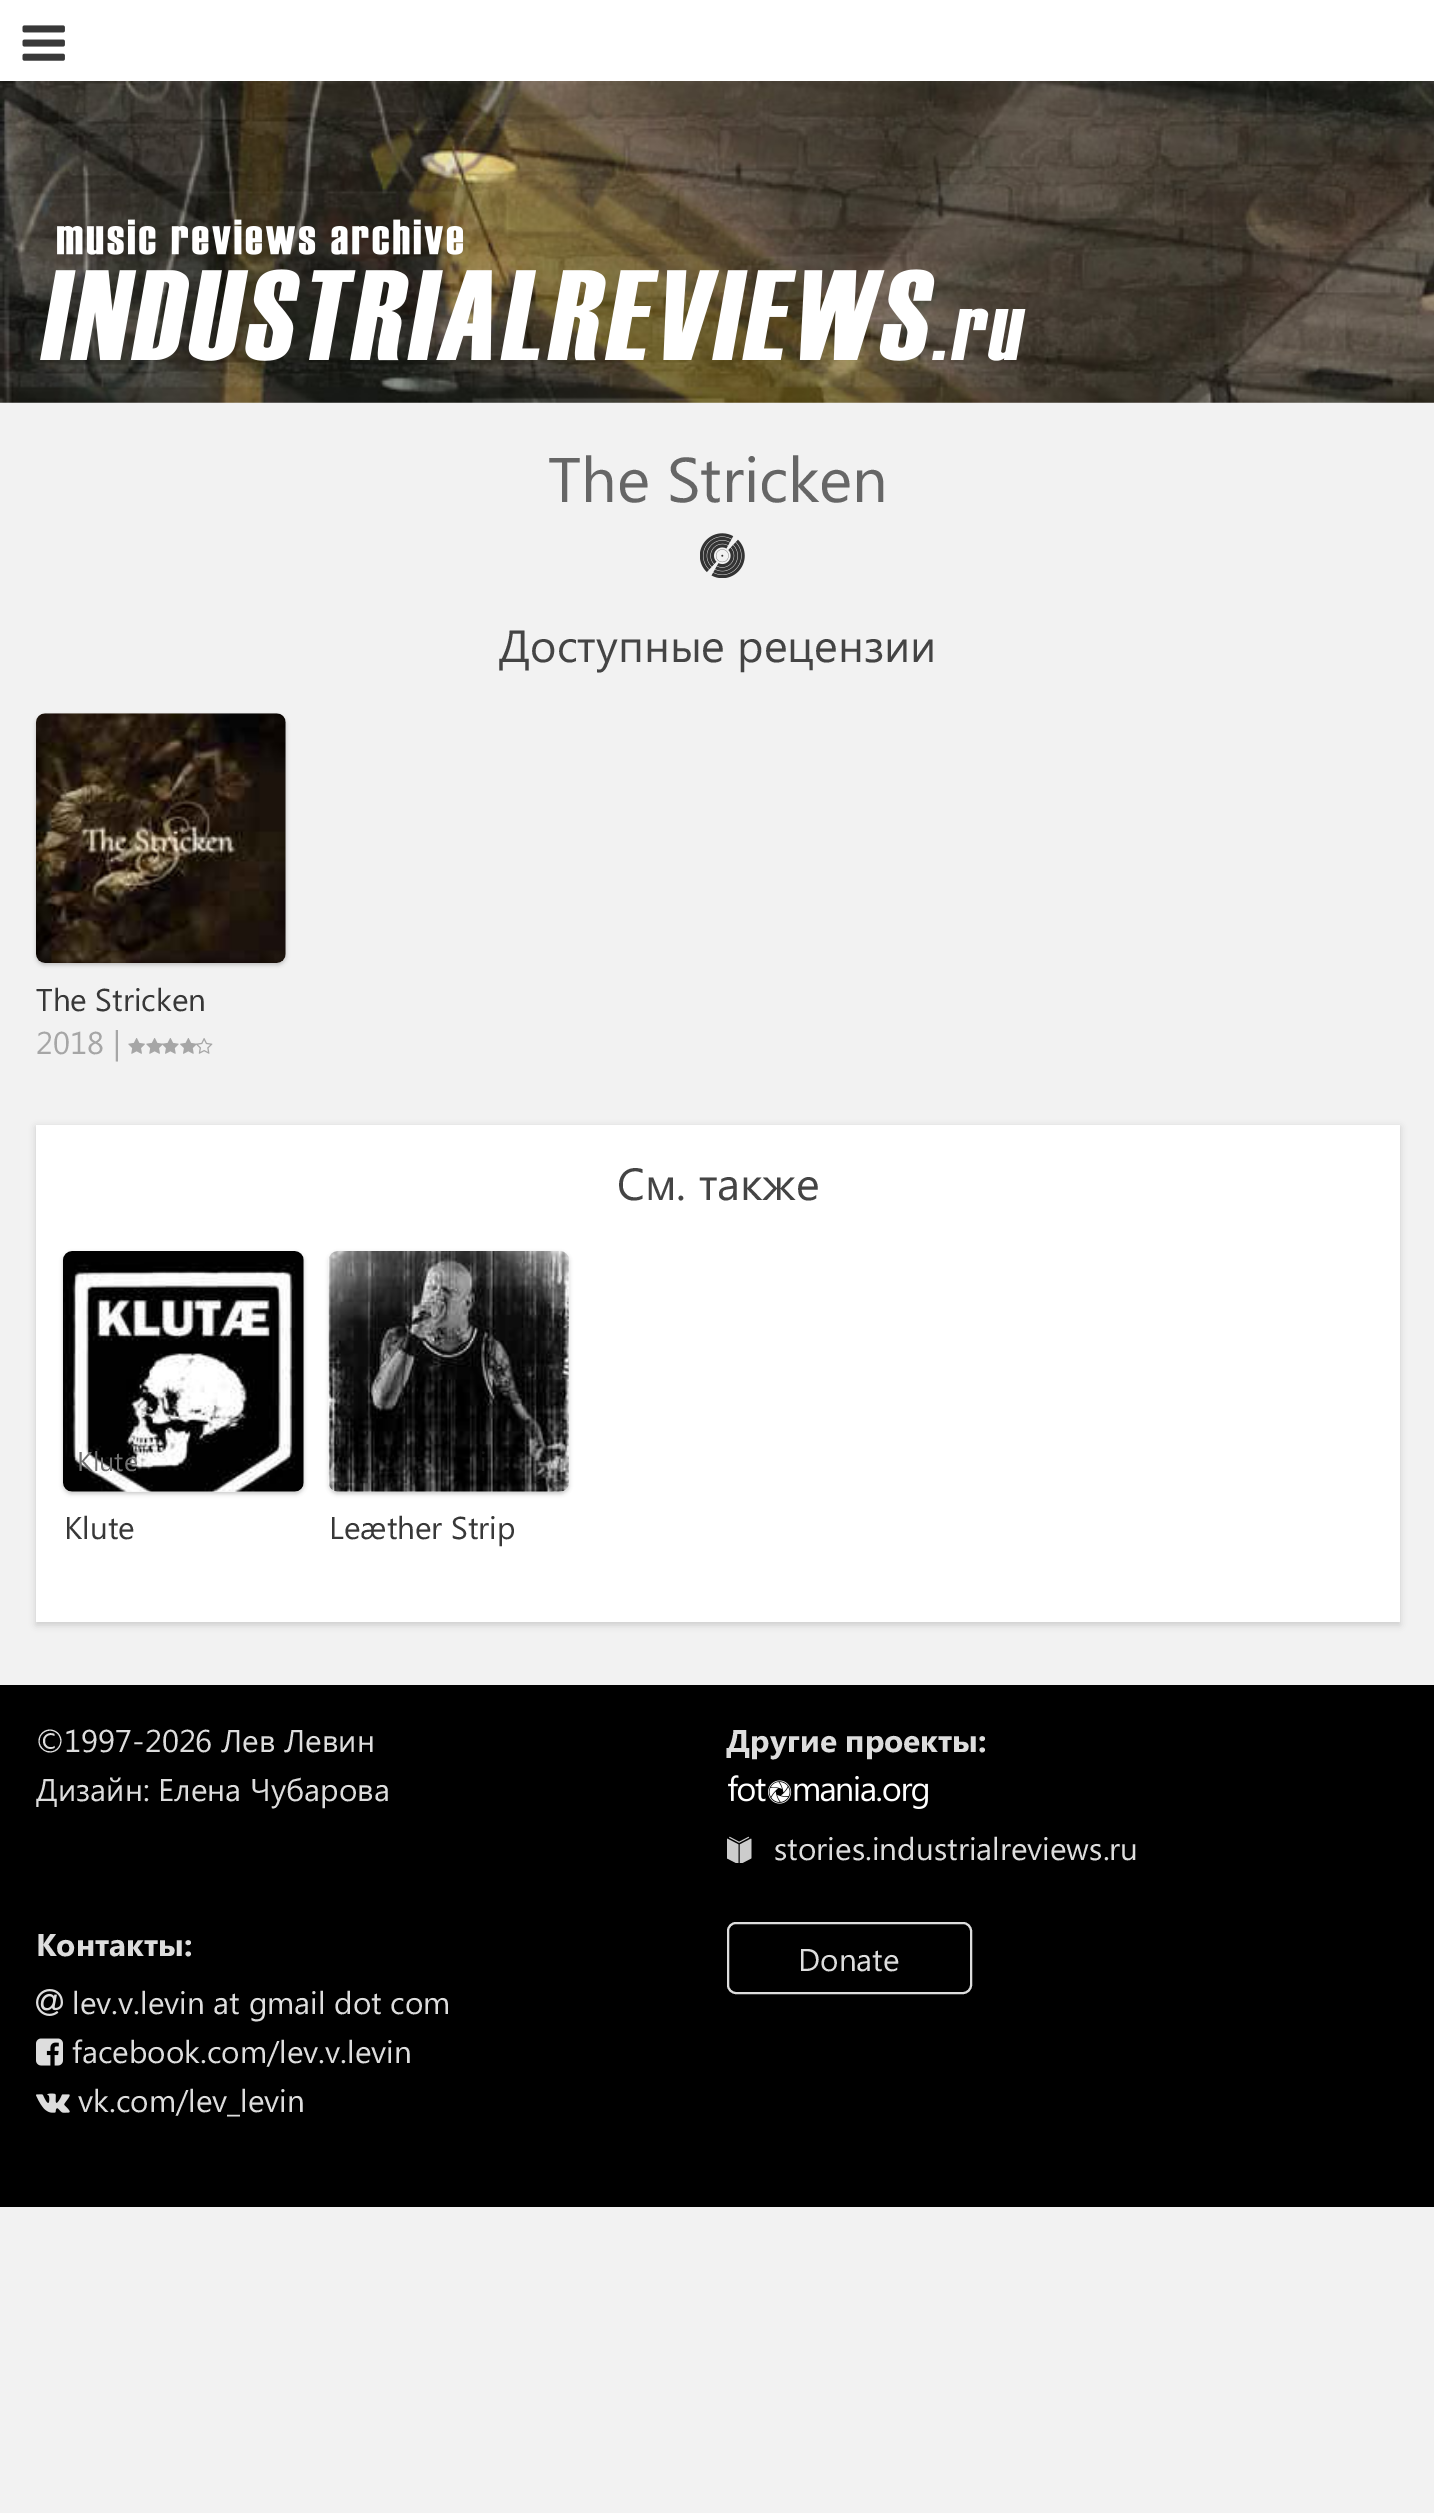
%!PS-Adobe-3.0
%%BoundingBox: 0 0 1434 2513
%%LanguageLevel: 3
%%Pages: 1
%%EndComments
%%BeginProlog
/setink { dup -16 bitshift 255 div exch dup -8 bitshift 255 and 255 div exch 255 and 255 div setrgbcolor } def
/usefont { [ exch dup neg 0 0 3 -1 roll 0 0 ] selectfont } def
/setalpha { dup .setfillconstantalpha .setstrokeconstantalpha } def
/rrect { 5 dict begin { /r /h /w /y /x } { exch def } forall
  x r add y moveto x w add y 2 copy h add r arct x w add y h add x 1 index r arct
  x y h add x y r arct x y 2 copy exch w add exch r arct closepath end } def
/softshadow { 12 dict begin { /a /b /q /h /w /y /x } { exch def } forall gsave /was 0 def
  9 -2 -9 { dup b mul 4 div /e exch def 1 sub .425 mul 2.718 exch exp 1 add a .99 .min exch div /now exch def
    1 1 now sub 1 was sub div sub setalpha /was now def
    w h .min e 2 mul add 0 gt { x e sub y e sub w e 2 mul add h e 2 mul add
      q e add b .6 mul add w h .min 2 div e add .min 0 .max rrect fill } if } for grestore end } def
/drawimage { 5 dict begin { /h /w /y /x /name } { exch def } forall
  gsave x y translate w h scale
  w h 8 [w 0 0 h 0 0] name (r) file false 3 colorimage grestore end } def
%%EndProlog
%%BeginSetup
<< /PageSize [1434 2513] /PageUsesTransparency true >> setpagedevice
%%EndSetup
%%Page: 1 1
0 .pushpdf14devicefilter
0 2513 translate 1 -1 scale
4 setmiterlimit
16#F2F2F2 setink
0 0 1434 2513 rectfill
16#FFFFFF setink
0 0 1434 81 rectfill
(img1.raw) 22 25 43 36 drawimage
(img2.raw) 0 81 1434 322 drawimage
(img3.raw) 40 219 986 142 drawimage
/SegoeUI-Regular 63 usefont
16#666666 setink
548 502 moveto (The Stricken) show
(img4.raw) 700 533 45 45 drawimage
/SegoeUI-Regular 45 usefont
16#444444 setink
499 662 moveto (Доступные рецензии) show
16#000000 setink
36 716 250 249 9 2 0.2 softshadow
(img5.raw) 36 713 250 250 drawimage
/SegoeUI-Regular 31.5 usefont
16#383838 setink
36 1011 moveto (The Stricken) show
16#A6A6A6 setink
36 1054 moveto (2018 |) show
(img6.raw) 128 1038 17 16 drawimage
(img6.raw) 146 1038 17 16 drawimage
(img7.raw) 162 1038 17 16 drawimage
(img8.raw) 180 1038 17 16 drawimage
(img9.raw) 196 1038 17 16 drawimage
16#000000 setink
36 1127 1364 498 0 3.5 0.15 softshadow
16#FFFFFF setink
36 1125 1364 497 rectfill
/SegoeUI-Regular 45 usefont
16#444444 setink
617 1200 moveto (См. также) show
16#000000 setink
63 1253 241 241 9 2 0.2 softshadow
(img10.raw) 63 1251 241 241 drawimage
/SegoeUI-Regular 27 usefont
16#707070 setink
77 1471 moveto (Klute) show
/SegoeUI-Regular 31.5 usefont
16#383838 setink
64 1539 moveto (Klute) show
16#000000 setink
329 1253 240 241 9 2 0.2 softshadow
(img11.raw) 328 1251 242 241 drawimage
/SegoeUI-Regular 27 usefont
16#1A1A1A setink
480 1471 moveto (i) show
/SegoeUI-Regular 31.5 usefont
16#383838 setink
329 1539 moveto (Leæther Strip) show
16#000000 setink
0 1685 1434 522 rectfill
16#DDDDDD setink
36 1752 moveto (©1997-2026 Лев Левин) show
36 1801 moveto (Дизайн: Елена Чубарова) show
/SegoeUI-Bold 31.5 usefont
726 1752 moveto (Другие проекты:) show
(img12.raw) 728 1775 200 34 drawimage
(img13.raw) 727 1836 25 27 drawimage
/SegoeUI-Regular 31.5 usefont
774 1860 moveto (stories.industrialreviews.ru) show
/SegoeUI-Bold 31.5 usefont
36 1956 moveto (Контакты:) show
(img14.raw) 36 1989 27 27 drawimage
/SegoeUI-Regular 31.5 usefont
72 2014 moveto (lev.v.levin at gmail dot com) show
(img15.raw) 36 2038 27 28 drawimage
72 2063 moveto (facebook.com/lev.v.levin) show
(img16.raw) 36 2093 34 20 drawimage
78 2112 moveto (vk.com/lev_levin) show
2 setlinewidth
728 1923 243 70 8 rrect stroke
798 1971 moveto (Donate) show
.poppdf14devicefilter showpage
%%EOF
